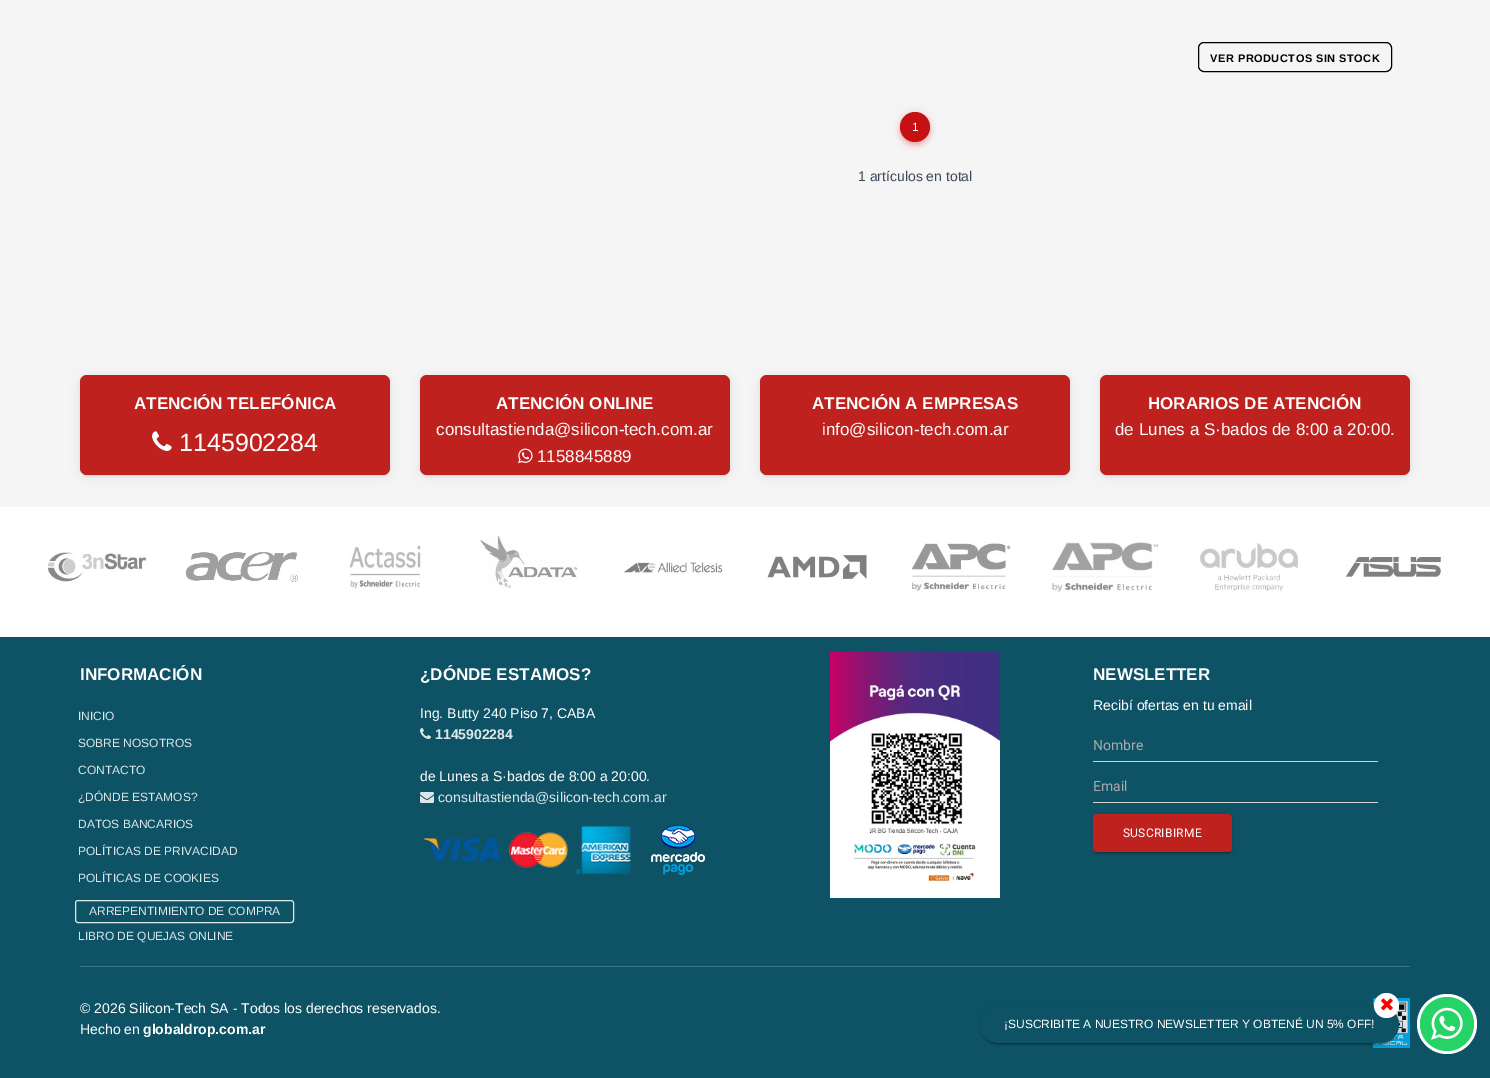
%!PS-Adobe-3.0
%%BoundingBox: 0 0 1490 1078
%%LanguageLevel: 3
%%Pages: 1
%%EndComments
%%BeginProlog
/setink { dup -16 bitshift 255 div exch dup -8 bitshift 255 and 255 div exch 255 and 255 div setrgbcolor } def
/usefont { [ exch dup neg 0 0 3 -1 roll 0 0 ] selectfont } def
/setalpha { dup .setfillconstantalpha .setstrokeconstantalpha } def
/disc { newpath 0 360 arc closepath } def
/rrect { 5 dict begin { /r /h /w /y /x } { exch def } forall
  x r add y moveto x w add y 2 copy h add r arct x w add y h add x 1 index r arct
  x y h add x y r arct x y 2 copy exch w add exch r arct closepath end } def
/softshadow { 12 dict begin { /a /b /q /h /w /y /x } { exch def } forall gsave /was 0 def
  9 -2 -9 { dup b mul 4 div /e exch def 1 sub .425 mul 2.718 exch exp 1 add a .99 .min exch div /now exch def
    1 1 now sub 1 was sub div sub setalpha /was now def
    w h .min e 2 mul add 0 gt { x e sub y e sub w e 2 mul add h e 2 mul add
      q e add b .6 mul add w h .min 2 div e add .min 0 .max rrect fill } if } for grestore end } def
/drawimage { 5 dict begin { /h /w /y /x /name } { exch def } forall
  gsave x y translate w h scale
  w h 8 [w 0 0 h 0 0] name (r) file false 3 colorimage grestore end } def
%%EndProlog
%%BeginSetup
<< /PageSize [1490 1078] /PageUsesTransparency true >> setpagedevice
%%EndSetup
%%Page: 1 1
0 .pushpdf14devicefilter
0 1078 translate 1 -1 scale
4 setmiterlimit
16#F5F5F5 setink
0 0 1490 1078 rectfill
16#000000 setink
1198.5 42.5 193 29 5.5 rrect stroke
/LiberationSans-Bold 11 usefont
1210 62 moveto 0.5 0 (VER PRODUCTOS SIN STOCK) ashow
16#C51112 setink
901 115 28 28 14 2 0.2 softshadow
900 113 30 30 15 5 0.12 softshadow
900 116 30 30 15 2.5 0.14 softshadow
915 127 15 disc fill
/LiberationSans-Regular 12 usefont
16#FFFFFF setink
912 131 moveto (1) show
/LiberationSans-Regular 14 usefont
16#3C4858 setink
858 181 moveto (1 artículos en total) show
16#000000 setink
80 376 310 100 7 2.5 0.05 softshadow
82 380 306 96 5 0.5 0.05 softshadow
80 377 310 100 7 7 0.05 softshadow
16#BF211E setink
80 375 310 100 7 rrect fill
/LiberationSans-Bold 17 usefont
16#FFFFFF setink
134 409 moveto (ATENCIÓN TELEFÓNICA) show
(img1.raw) 152 431 20 20 drawimage
/LiberationSans-Regular 25 usefont
179 451 moveto (1145902284) show
16#000000 setink
420 376 310 100 7 2.5 0.05 softshadow
422 380 306 96 5 0.5 0.05 softshadow
420 377 310 100 7 7 0.05 softshadow
16#BF211E setink
420 375 310 100 7 rrect fill
/LiberationSans-Bold 17 usefont
16#FFFFFF setink
496 409 moveto (ATENCIÓN ONLINE) show
/LiberationSans-Regular 17 usefont
436 435 moveto (consultastienda@silicon-tech.com.ar) show
(img2.raw) 518 448 15 16 drawimage
537 462 moveto (1158845889) show
16#000000 setink
760 376 310 100 7 2.5 0.05 softshadow
762 380 306 96 5 0.5 0.05 softshadow
760 377 310 100 7 7 0.05 softshadow
16#BF211E setink
760 375 310 100 7 rrect fill
/LiberationSans-Bold 17 usefont
16#FFFFFF setink
812 409 moveto (ATENCIÓN A EMPRESAS) show
/LiberationSans-Regular 17 usefont
822 435 moveto (info@silicon-tech.com.ar) show
16#000000 setink
1100 376 310 100 7 2.5 0.05 softshadow
1102 380 306 96 5 0.5 0.05 softshadow
1100 377 310 100 7 7 0.05 softshadow
16#BF211E setink
1100 375 310 100 7 rrect fill
/LiberationSans-Bold 17 usefont
16#FFFFFF setink
1148 409 moveto (HORARIOS DE ATENCIÓN) show
/LiberationSans-Regular 17 usefont
1115 435 moveto (de Lunes a S·bados de 8:00 a 20:00.) show
0 507 1490 130 rectfill
(img3.raw) 47 552 100 30 drawimage
(img4.raw) 186 551 112 32 drawimage
(img5.raw) 349 545 72 44 drawimage
(img6.raw) 479 535 99 54 drawimage
(img7.raw) 624 562 99 12 drawimage
(img8.raw) 767 555 100 24 drawimage
(img9.raw) 911 541 100 52 drawimage
(img10.raw) 1051 542 108 50 drawimage
(img11.raw) 1200 543 98 50 drawimage
(img12.raw) 1345 556 96 22 drawimage
16#0D5265 setink
0 637 1490 441 rectfill
/LiberationSans-Bold 17 usefont
16#FFFFFF setink
80 680 moveto (INFORMACIÓN) show
/LiberationSans-Regular 12 usefont
16#DDE7E9 setink
[
    [(INICIO) 78 720]
    [(SOBRE NOSOTROS) 78 747]
    [(CONTACTO) 78 774]
    [(¿DÓNDE ESTAMOS?) 78 801]
    [(DATOS BANCARIOS) 78 828]
    [(POLÍTICAS DE PRIVACIDAD) 78 855]
    [(POLÍTICAS DE COOKIES) 78 882]
] { aload pop moveto show } forall
75.5 900.5 218 22 2.5 rrect stroke
89 915 moveto (ARREPENTIMIENTO DE COMPRA) show
78 940 moveto (LIBRO DE QUEJAS ONLINE) show
/LiberationSans-Bold 17 usefont
16#FFFFFF setink
420 680 moveto (¿DÓNDE ESTAMOS?) show
/LiberationSans-Regular 14 usefont
420 718 moveto (Ing. Butty 240 Piso 7, CABA) show
(img13.raw) 420 728 11 11 drawimage
/LiberationSans-Bold 14 usefont
16#DDE7E9 setink
435 739 moveto (1145902284) show
/LiberationSans-Regular 14 usefont
16#FFFFFF setink
420 781 moveto (de Lunes a S·bados de 8:00 a 20:00.) show
(img14.raw) 420 792 14 11 drawimage
16#DDE7E9 setink
438 802 moveto (consultastienda@silicon-tech.com.ar) show
(img15.raw) 423 825 208 50 drawimage
(img16.raw) 651 825 54 50 drawimage
(img17.raw) 830 652 170 246 drawimage
/LiberationSans-Bold 17 usefont
16#FFFFFF setink
1093 680 moveto (NEWSLETTER) show
/LiberationSans-Regular 14 usefont
1093 710 moveto (Recibí ofertas en tu email) show
16#D2D2D2 setink
1093 761 285 1 rectfill
/Roboto-Regular 14 usefont
16#AAAAAA setink
1093 750 moveto (Nombre) show
16#D2D2D2 setink
1093 802 285 1 rectfill
16#AAAAAA setink
1093 791 moveto (Email) show
16#000000 setink
1093 815 139 38 4 2.5 0.12 softshadow
1095 819 135 34 2 0.5 0.2 softshadow
1093 816 139 38 4 1 0.14 softshadow
16#BF211E setink
1093 814 139 38 4 rrect fill
/Roboto-Regular 12 usefont
16#FFFFFF setink
1123 837 moveto 0.25 0 (SUSCRIBIRME) ashow
16#3D7584 setink
80 966 1330 1 rectfill
/LiberationSans-Regular 14 usefont
16#FFFFFF setink
80 1013 moveto (© 2026 Silicon-Tech SA - Todos los derechos reservados.) show
80 1034 moveto (Hecho en) show
/LiberationSans-Bold 14 usefont
143 1034 moveto (globaldrop.com.ar) show
(img18.raw) 1373 998 37 50 drawimage
1447 1024 30 disc fill
16#25D366 setink
1447 1024 27 disc fill
(img19.raw) 1431 1007 32 33 drawimage
16#000000 setink
980 1007 419 37 18.5 2.5 0.12 softshadow
982 1011 415 33 16.5 0.5 0.2 softshadow
980 1008 419 37 18.5 1 0.14 softshadow
16#0D5265 setink
980 1006 419 37 18.5 rrect fill
16#FFFFFF setink
1386.5 1005.5 12.5 disc fill
(img20.raw) 1381 998 12 13 drawimage
/LiberationSans-Regular 12 usefont
1004 1028 moveto (¡SUSCRIBITE A NUESTRO NEWSLETTER Y OBTENÉ UN 5% OFF!) show
.poppdf14devicefilter showpage
%%EOF
